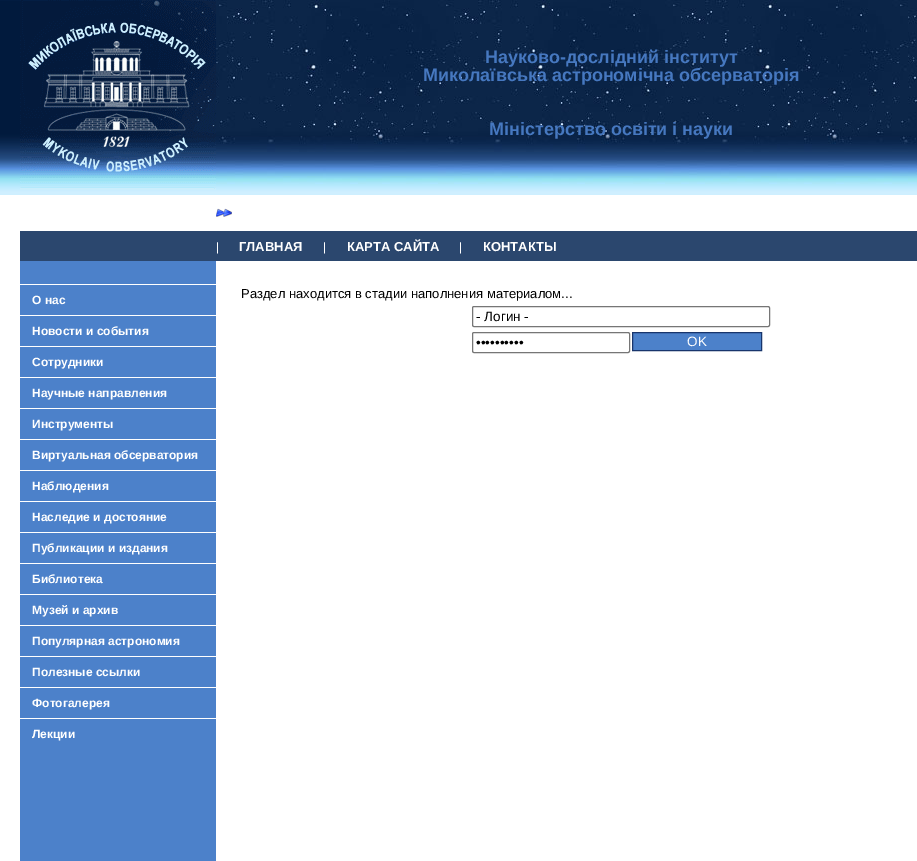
%!PS-Adobe-3.0
%%BoundingBox: 0 0 917 861
%%LanguageLevel: 3
%%Pages: 1
%%EndComments
%%BeginProlog
/setink { dup -16 bitshift 255 div exch dup -8 bitshift 255 and 255 div exch 255 and 255 div setrgbcolor } def
/usefont { [ exch dup neg 0 0 3 -1 roll 0 0 ] selectfont } def
/rrect { 5 dict begin { /r /h /w /y /x } { exch def } forall
  x r add y moveto x w add y 2 copy h add r arct x w add y h add x 1 index r arct
  x y h add x y r arct x y 2 copy exch w add exch r arct closepath end } def
/drawimage { 5 dict begin { /h /w /y /x /name } { exch def } forall
  gsave x y translate w h scale
  w h 8 [w 0 0 h 0 0] name (r) file false 3 colorimage grestore end } def
%%EndProlog
%%BeginSetup
<< /PageSize [917 861] >> setpagedevice
%%EndSetup
%%Page: 1 1
0 861 translate 1 -1 scale
4 setmiterlimit
16#FFFFFF setink
0 0 917 861 rectfill
(img1.raw) 0 0 917 195 drawimage
(img2.raw) 20 0 196 190 drawimage
(img3.raw) 216 0 701 184 drawimage
/LiberationSans-Bold 18 usefont
16#4678C0 setink
[
    [(Науково-дослідний інститут) 485 63]
    [(Миколаївська астрономічна обсерваторія) 423 81]
    [(Міністерство освіти і науки) 489 135]
] { aload pop moveto show } forall
(img4.raw) 216 208 16 9 drawimage
16#2B476E setink
20 231 897 30 rectfill
/LiberationSans-Regular 12 usefont
16#FFFFFF setink
216 251 moveto (|) show
/LiberationSans-Bold 13 usefont
239 251 moveto (ГЛАВНАЯ) show
/LiberationSans-Regular 12 usefont
323 251 moveto (|) show
/LiberationSans-Bold 13 usefont
347 251 moveto (КАРТА САЙТА) show
/LiberationSans-Regular 12 usefont
459 251 moveto (|) show
/LiberationSans-Bold 13 usefont
483 251 moveto (КОНТАКТЫ) show
16#4C81CA setink
20 261 196 600 rectfill
16#FFFFFF setink
20 284 196 1 rectfill
/LiberationSans-Bold 12 usefont
32 304 moveto (О нас) show
20 315 196 1 rectfill
32 335 moveto (Новости и события) show
20 346 196 1 rectfill
32 366 moveto (Сотрудники) show
20 377 196 1 rectfill
32 397 moveto (Научные направления) show
20 408 196 1 rectfill
32 428 moveto (Инструменты) show
20 439 196 1 rectfill
32 459 moveto (Виртуальная обсерватория) show
20 470 196 1 rectfill
32 490 moveto (Наблюдения) show
20 501 196 1 rectfill
32 521 moveto (Наследие и достояние) show
20 532 196 1 rectfill
32 552 moveto (Публикации и издания) show
20 563 196 1 rectfill
32 583 moveto (Библиотека) show
20 594 196 1 rectfill
32 614 moveto (Музей и архив) show
20 625 196 1 rectfill
32 645 moveto (Популярная астрономия) show
20 656 196 1 rectfill
32 676 moveto (Полезные ссылки) show
20 687 196 1 rectfill
32 707 moveto (Фотогалерея) show
20 718 196 1 rectfill
32 738 moveto (Лекции) show
/LiberationSans-Regular 13 usefont
16#000000 setink
241 298 moveto (Раздел находится в стадии наполнения материалом...) show
16#767676 setink
472.5 306.5 297 20 1.5 rrect stroke
/LiberationSans-Regular 13.5 usefont
16#000000 setink
476 321 moveto (- Логин -) show
16#767676 setink
472.5 332.5 157 20 1.5 rrect stroke
16#000000 setink
476 347 moveto (••••••••••) show
16#4C81CA setink
632.5 332.5 moveto 761.5 332.5 lineto 761.5 350.5 lineto 632.5 350.5 lineto closepath gsave fill grestore
16#18356C setink
stroke
16#FFFFFF setink
687 346 moveto (OK) show
showpage
%%EOF
